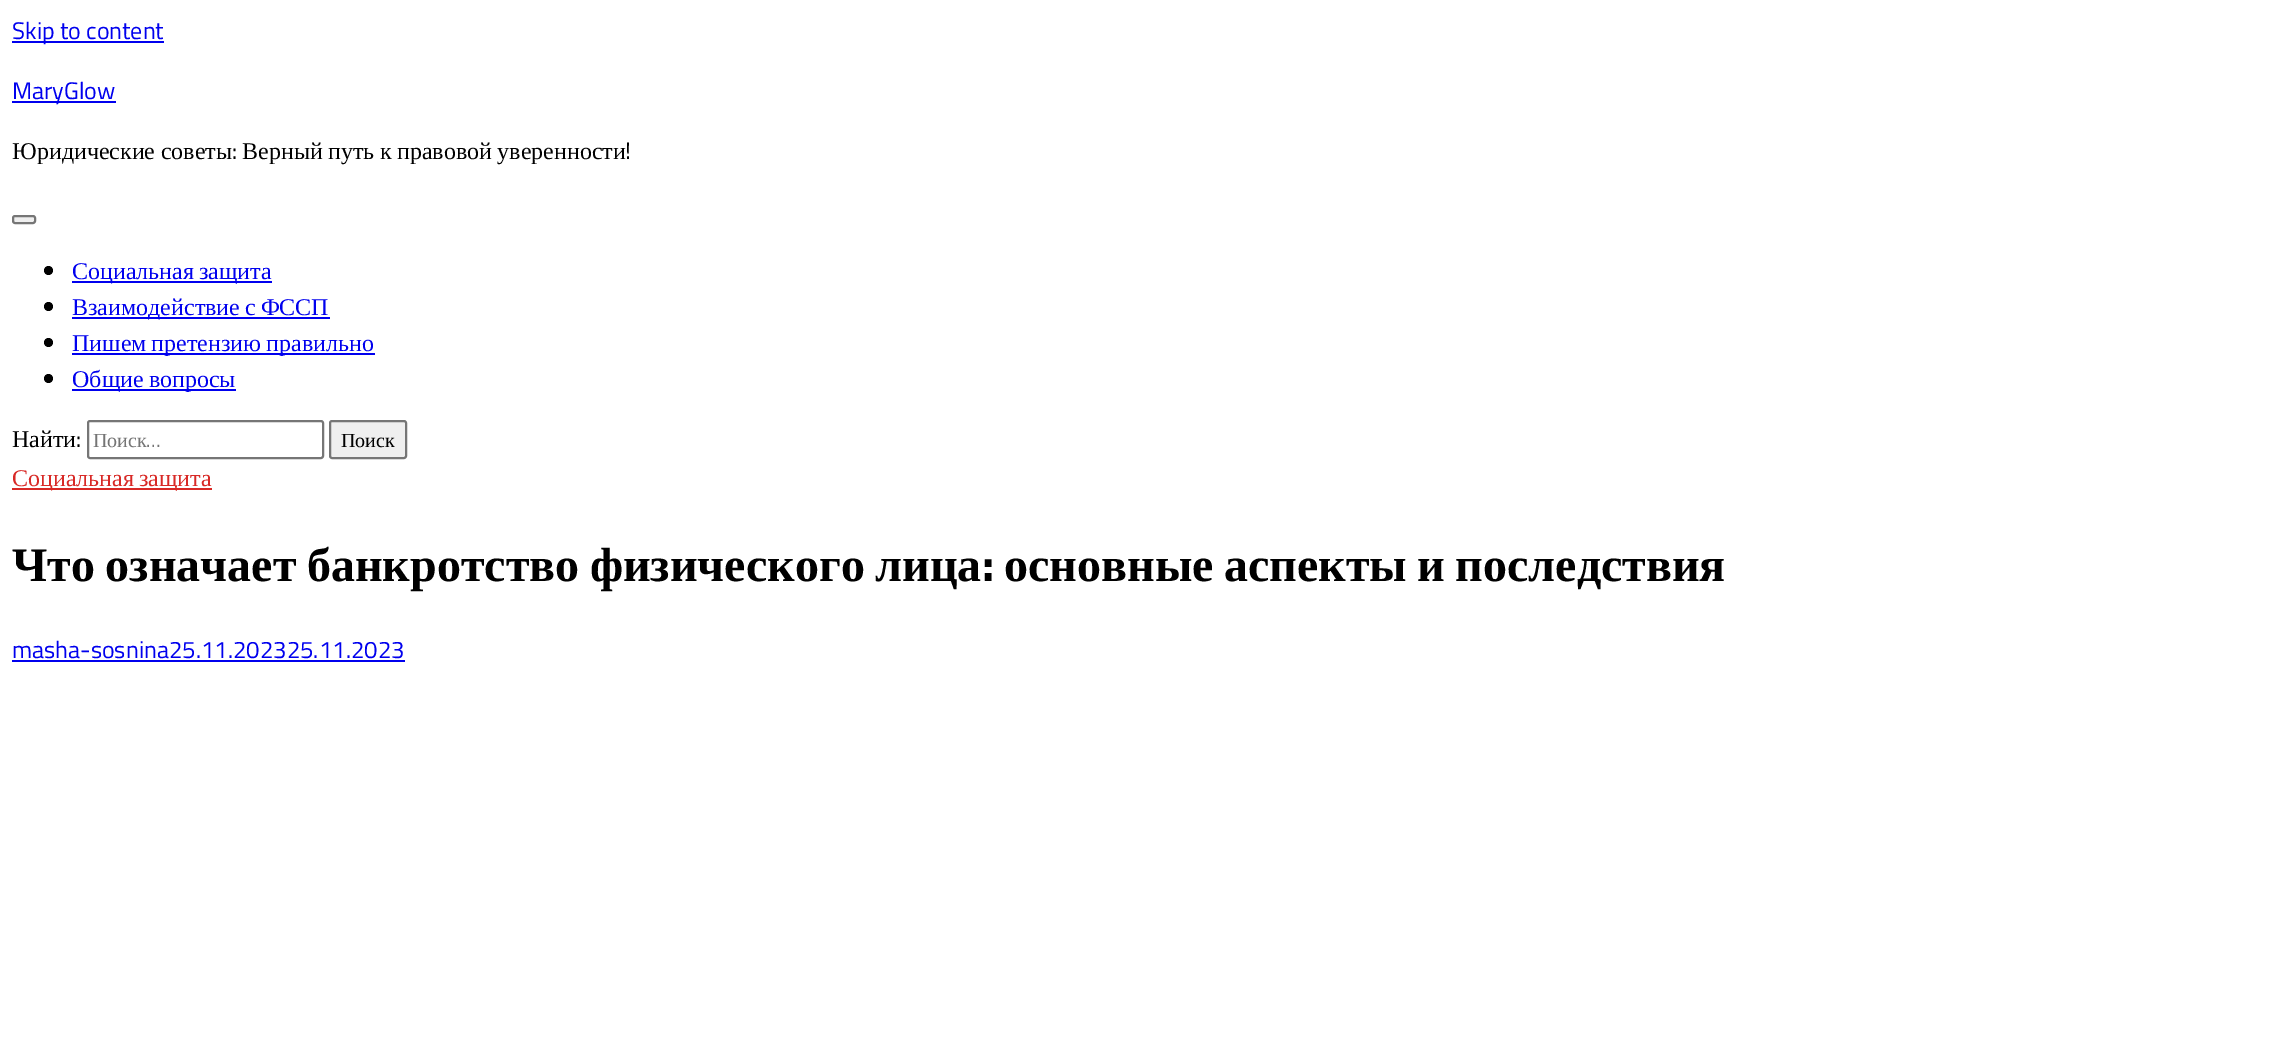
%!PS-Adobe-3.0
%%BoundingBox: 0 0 2288 1057
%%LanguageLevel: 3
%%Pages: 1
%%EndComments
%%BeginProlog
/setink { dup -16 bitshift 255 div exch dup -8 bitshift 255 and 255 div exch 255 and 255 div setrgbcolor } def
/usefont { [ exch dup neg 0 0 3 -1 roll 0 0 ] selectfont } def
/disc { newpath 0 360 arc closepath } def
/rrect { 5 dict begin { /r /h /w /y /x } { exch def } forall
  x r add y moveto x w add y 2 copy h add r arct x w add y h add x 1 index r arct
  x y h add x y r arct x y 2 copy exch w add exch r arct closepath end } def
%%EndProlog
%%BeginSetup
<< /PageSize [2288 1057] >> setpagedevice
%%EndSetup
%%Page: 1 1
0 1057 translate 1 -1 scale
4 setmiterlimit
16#FFFFFF setink
0 0 2288 1057 rectfill
16#0000EE setink
12 41 152 2 rectfill
/TitilliumWeb-Regular 24 usefont
12 39 moveto (Skip to content) show
12 101 104 2 rectfill
12 99 moveto (MaryGlow) show
/LiberationSerif-Regular 24 usefont
16#000000 setink
12 159 moveto -0.5 0 32 (Юридические советы) widthshow
/TitilliumWeb-Regular 24 usefont
232 159 moveto (:) show
/LiberationSerif-Regular 24 usefont
242 159 moveto -0.5 0 32 (Верный путь к правовой уверенности) widthshow
/TitilliumWeb-Regular 24 usefont
625 159 moveto (!) show
16#EFEFEF setink
13 216 22 7 2 rrect gsave fill grestore
16#767676 setink
2 setlinewidth
stroke
16#000000 setink
48.5 270.5 4.5 disc fill
16#0000EE setink
72 281 200 2 rectfill
/LiberationSerif-Regular 24 usefont
72 279 moveto -1 0 32 (Социальная защита) widthshow
16#000000 setink
48.5 306.5 4.5 disc fill
16#0000EE setink
72 317 258 2 rectfill
72 315 moveto -1 0 32 (Взаимодействие с ФССП) widthshow
16#000000 setink
48.5 342.5 4.5 disc fill
16#0000EE setink
72 353 303 2 rectfill
72 351 moveto -1 0 32 (Пишем претензию правильно) widthshow
16#000000 setink
48.5 378.5 4.5 disc fill
16#0000EE setink
72 389 164 2 rectfill
72 387 moveto -1 0 32 (Общие вопросы) widthshow
16#000000 setink
12 447 moveto (Найти) show
/TitilliumWeb-Regular 24 usefont
76 447 moveto (:) show
16#767676 setink
88 421 235 37 2 rrect stroke
/LiberationSerif-Regular 20 usefont
16#757575 setink
93 447 moveto (Поиск) show
/TitilliumWeb-Regular 20 usefont
146 447 moveto (…) show
16#EFEFEF setink
330 421 76 37 2 rrect gsave fill grestore
16#767676 setink
stroke
/LiberationSerif-Regular 20 usefont
16#000000 setink
341 447 moveto (Поиск) show
16#D82926 setink
12 488 200 2 rectfill
/LiberationSerif-Regular 24 usefont
12 486 moveto -1 0 32 (Социальная защита) widthshow
/LiberationSerif-Bold 48 usefont
16#000000 setink
12 581 moveto -1.5 0 32 (Что означает банкротство физического лица) widthshow
/TitilliumWeb-Bold 48 usefont
982 581 moveto (:) show
/LiberationSerif-Bold 48 usefont
1004 581 moveto -1.5 0 32 (основные аспекты и последствия) widthshow
/TitilliumWeb-Regular 24 usefont
16#0000EE setink
12 658 moveto (masha-sosnina25.11.202325.11.2023) show
12 660 393 2 rectfill
showpage
%%EOF
